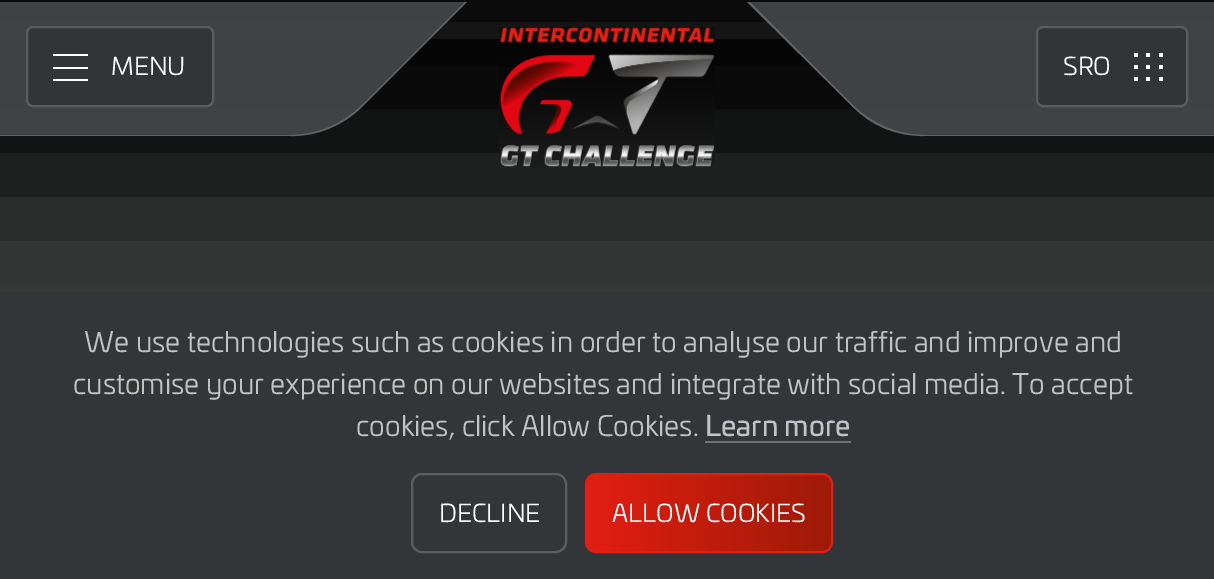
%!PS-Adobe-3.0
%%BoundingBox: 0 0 1214 579
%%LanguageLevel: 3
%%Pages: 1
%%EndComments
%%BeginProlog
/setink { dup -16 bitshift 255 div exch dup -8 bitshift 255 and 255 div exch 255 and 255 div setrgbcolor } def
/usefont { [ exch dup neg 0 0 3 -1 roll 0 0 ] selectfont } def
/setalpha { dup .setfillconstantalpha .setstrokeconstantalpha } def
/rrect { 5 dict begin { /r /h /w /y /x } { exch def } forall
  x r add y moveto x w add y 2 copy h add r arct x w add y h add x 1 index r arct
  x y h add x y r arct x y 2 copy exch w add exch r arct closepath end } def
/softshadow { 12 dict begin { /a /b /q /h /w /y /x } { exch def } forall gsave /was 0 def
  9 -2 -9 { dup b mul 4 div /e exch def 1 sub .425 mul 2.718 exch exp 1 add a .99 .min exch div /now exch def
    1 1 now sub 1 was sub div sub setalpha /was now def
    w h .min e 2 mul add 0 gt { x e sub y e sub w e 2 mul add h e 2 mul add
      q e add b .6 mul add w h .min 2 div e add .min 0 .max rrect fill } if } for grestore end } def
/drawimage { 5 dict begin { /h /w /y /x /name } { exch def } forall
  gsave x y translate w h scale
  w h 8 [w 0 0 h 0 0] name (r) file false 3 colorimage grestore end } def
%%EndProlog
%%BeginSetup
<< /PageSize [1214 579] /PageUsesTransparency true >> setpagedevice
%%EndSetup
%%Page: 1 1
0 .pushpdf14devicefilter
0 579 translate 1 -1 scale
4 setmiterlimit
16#FFFFFF setink
0 0 1214 579 rectfill
16#3C3D3D setink
0 39 1214 253 rectfill
16#000000 setink
-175 -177 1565 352 0 87.5 1 softshadow
0.9 setalpha
16#454849 setink
-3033 2 moveto -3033 136 lineto 290 136 lineto 317 136 343 126 363 106 curveto 467 2 lineto closepath fill
0.18 setalpha
16#FFFFFF setink
465 2 moveto 362 105 lineto 343 124 317 135 290 135 curveto -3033 135 lineto -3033 136 lineto 290 136 lineto 317 137 343 126 363 106 curveto 467 2 lineto closepath fill
1 setalpha
16#323535 setink
26 26 188 81 7 rrect fill
0.2 setalpha
16#FFFFFF setink
2 setlinewidth
27 27 186 79 6 rrect stroke
1 setalpha
[
    [53 54 35 2 16#FFFFFF]
    [53 67 35 2 16#FFFFFF]
    [53 79 35 2 16#FFFFFF]
] { aload pop setink rectfill } forall
/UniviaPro-Regular 24.5 usefont
111 75 moveto (MENU) show
(img1.raw) 499 27 216 140 drawimage
0.9 setalpha
16#454849 setink
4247 2 moveto 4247 136 lineto 925 136 lineto 897 136 871 126 852 106 curveto 747 2 lineto closepath fill
0.18 setalpha
16#FFFFFF setink
750 2 moveto 853 105 lineto 872 124 898 135 925 135 curveto 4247 135 lineto 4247 136 lineto 925 136 lineto 897 137 871 126 852 106 curveto 747 2 lineto closepath fill
1 setalpha
16#323535 setink
1036 26 152 81 7 rrect fill
0.2 setalpha
16#FFFFFF setink
1037 27 150 79 6 rrect stroke
1 setalpha
1063 75 moveto (SRO) show
[
    [1134 53 4 4 16#FFFFFF]
    [1146 53 4 4 16#FFFFFF]
    [1159 53 4 4 16#FFFFFF]
    [1134 65 4 4 16#FFFFFF]
    [1146 65 4 4 16#FFFFFF]
    [1159 65 4 4 16#FFFFFF]
    [1134 77 4 4 16#FFFFFF]
    [1146 77 4 4 16#FFFFFF]
    [1159 77 4 4 16#FFFFFF]
    [0 292 1214 287 16#333638]
] { aload pop setink rectfill } forall
/UniviaPro-Regular 28 usefont
16#C2C3C3 setink
[
    [(We use technologies such as cookies in order to analyse our traffic and improve and) 84 352]
    [(customise your experience on our websites and integrate with social media. To accept) 73 394]
    [(cookies, click Allow Cookies.) 356 436]
] { aload pop moveto show } forall
/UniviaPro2-Regular 28 usefont
705 436 moveto (Learn more) show
16#707274 setink
705 441 146 2 rectfill
16#5C5E60 setink
412 474 154 78 10 rrect stroke
/UniviaPro-Regular 24.5 usefont
16#FFFFFF setink
439 522 moveto (DECLINE) show
gsave 586 474 246 78 10 rrect clip newpath
<< /ShadingType 2 /ColorSpace /DeviceRGB /Coords [585 513 833 513] /Extend [true true] /Function << /FunctionType 2 /Domain [0 1] /C0 [0.89 0.118 0.071] /C1 [0.616 0.102 0.027] /N 1 >> >> shfill grestore
16#E31E12 setink
586 474 246 78 10 rrect stroke
16#FFFFFF setink
612 522 moveto (ALLOW COOKIES) show
.poppdf14devicefilter showpage
%%EOF
